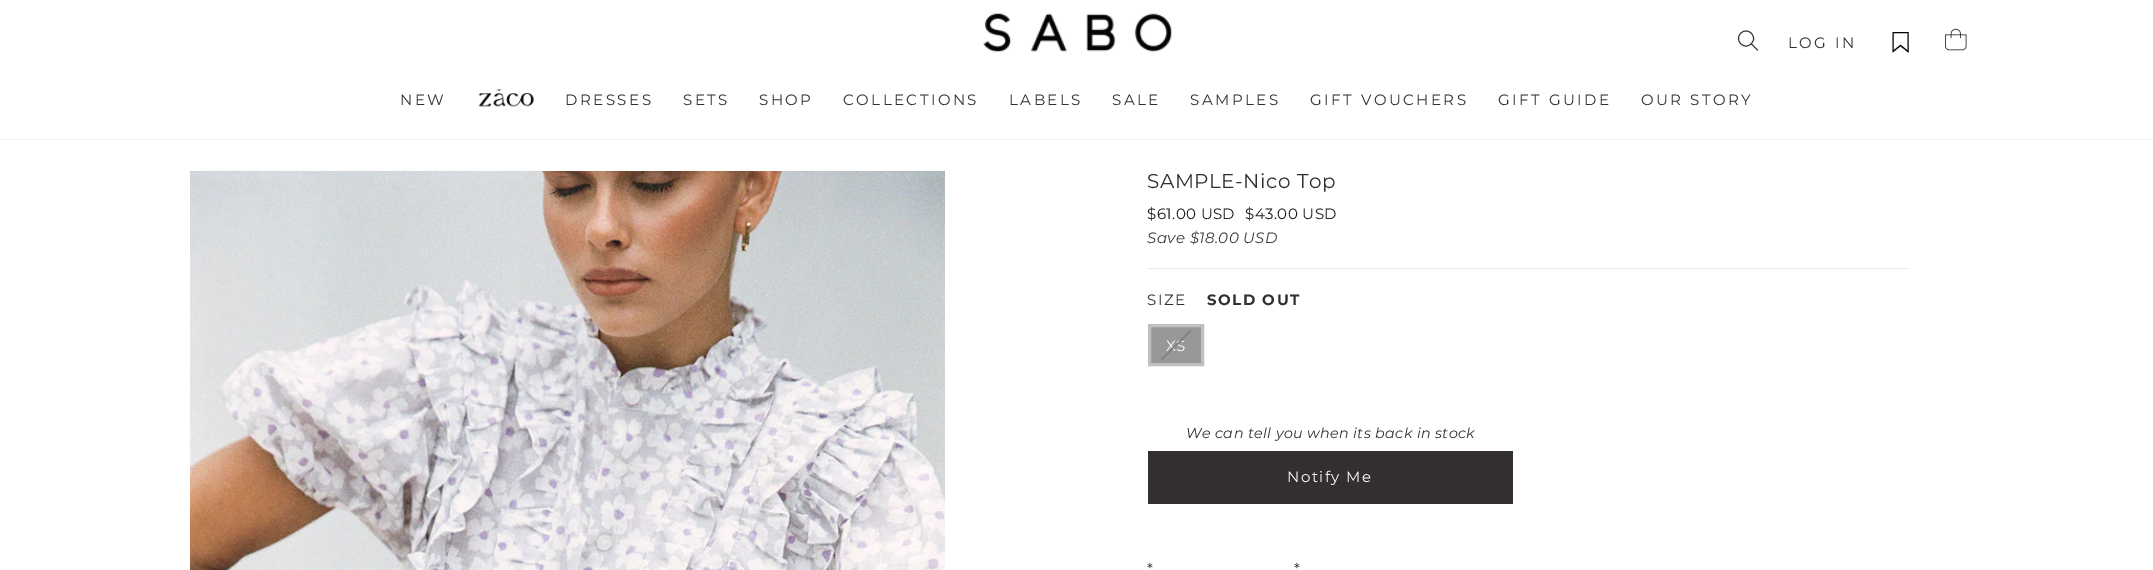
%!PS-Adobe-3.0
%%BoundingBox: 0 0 2153 570
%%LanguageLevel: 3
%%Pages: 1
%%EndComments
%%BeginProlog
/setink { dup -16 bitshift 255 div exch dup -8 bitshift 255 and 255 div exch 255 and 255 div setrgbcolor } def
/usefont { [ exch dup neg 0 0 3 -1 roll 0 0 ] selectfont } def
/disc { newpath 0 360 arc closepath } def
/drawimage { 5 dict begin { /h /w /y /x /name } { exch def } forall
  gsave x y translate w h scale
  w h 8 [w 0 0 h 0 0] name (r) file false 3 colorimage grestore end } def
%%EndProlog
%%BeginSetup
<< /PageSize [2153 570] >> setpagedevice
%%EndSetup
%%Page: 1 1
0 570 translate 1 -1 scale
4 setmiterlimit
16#FFFFFF setink
0 0 2153 570 rectfill
16#F2F2F2 setink
0 139 2153 1 rectfill
(img1.raw) 983 13 189 39 drawimage
16#332F30 setink
0.9 setlinewidth
2 setlinecap
1757.5 50 moveto 1751.5 44 lineto stroke
0 setlinecap
1746 38.5 7.5 disc stroke
/Montserrat-Thin 15 usefont
1788 48 moveto 2.5 0 (LOG IN) ashow
16#000000 setink
1.1 setlinewidth
1900.5 32.5 moveto 1908 32.5 lineto 1908 51.5 lineto 1900.5 45.5 lineto 1893 51.5 lineto 1893 32.5 lineto closepath stroke
(img2.raw) 1945 28 22 23 drawimage
16#332F30 setink
400 105 moveto 2.5 0 (NEW) ashow
(img3.raw) 479 89 55 18 drawimage
565 105 moveto 2.5 0 (DRESSES) ashow
683 105 moveto 2.5 0 (SETS) ashow
759 105 moveto 2.5 0 (SHOP) ashow
843 105 moveto 2.5 0 (COLLECTIONS) ashow
1009 105 moveto 2.5 0 (LABELS) ashow
1112 105 moveto 2.5 0 (SALE) ashow
1190 105 moveto 2.5 0 (SAMPLES) ashow
1310 105 moveto 2.5 0 (GIFT VOUCHERS) ashow
1498 105 moveto 2.5 0 (GIFT GUIDE) ashow
1641 105 moveto 2.5 0 (OUR STORY) ashow
(img4.raw) 190 171 755 399 drawimage
/Montserrat-Thin 20 usefont
1147 188 moveto 0.5 0 (SAMPLE-Nico Top) ashow
/Montserrat-Thin 15 usefont
16#1C1D1D setink
1147 219 moveto 0.4 0 ($61.00 USD) ashow
1245 219 moveto 0.4 0 ($43.00 USD) ashow
/Montserrat-Italic 15 usefont
16#3C3C3C setink
1147 243 moveto 0.4 0 (Save $18.00 USD) ashow
16#E8E8E1 setink
1148 268 761 1 rectfill
/Montserrat-Thin 15 usefont
16#332F30 setink
1147 305 moveto 1.5 0 (SIZE) ashow
/Montserrat-Bold 15 usefont
1207 305 moveto 1.5 0 (SOLD OUT) ashow
16#999798 setink
1151 327 50 36 rectfill
/Montserrat-Thin 15 usefont
16#FFFFFF setink
1166 351 moveto 0.4 0 (XS) ashow
16#808080 setink
1190.5 330 moveto 1191.5 331 lineto 1162 360 lineto 1161 359 lineto closepath fill
16#C0C0C0 setink
3 setlinewidth
1149.5 325.5 53 39 rectstroke
/Montserrat-Italic 14.25 usefont
16#332F30 setink
1186 438 moveto 0.4 0 (We can tell you when its back in stock) ashow
1148 451 365 53 rectfill
/Montserrat-Thin 15 usefont
16#FFFFFF setink
1287 482 moveto 1.5 0 (Notify Me) ashow
16#332F30 setink
1147 574 moveto 0.4 0 (*) ashow
1294 574 moveto 0.4 0 (*) ashow
showpage
%%EOF
